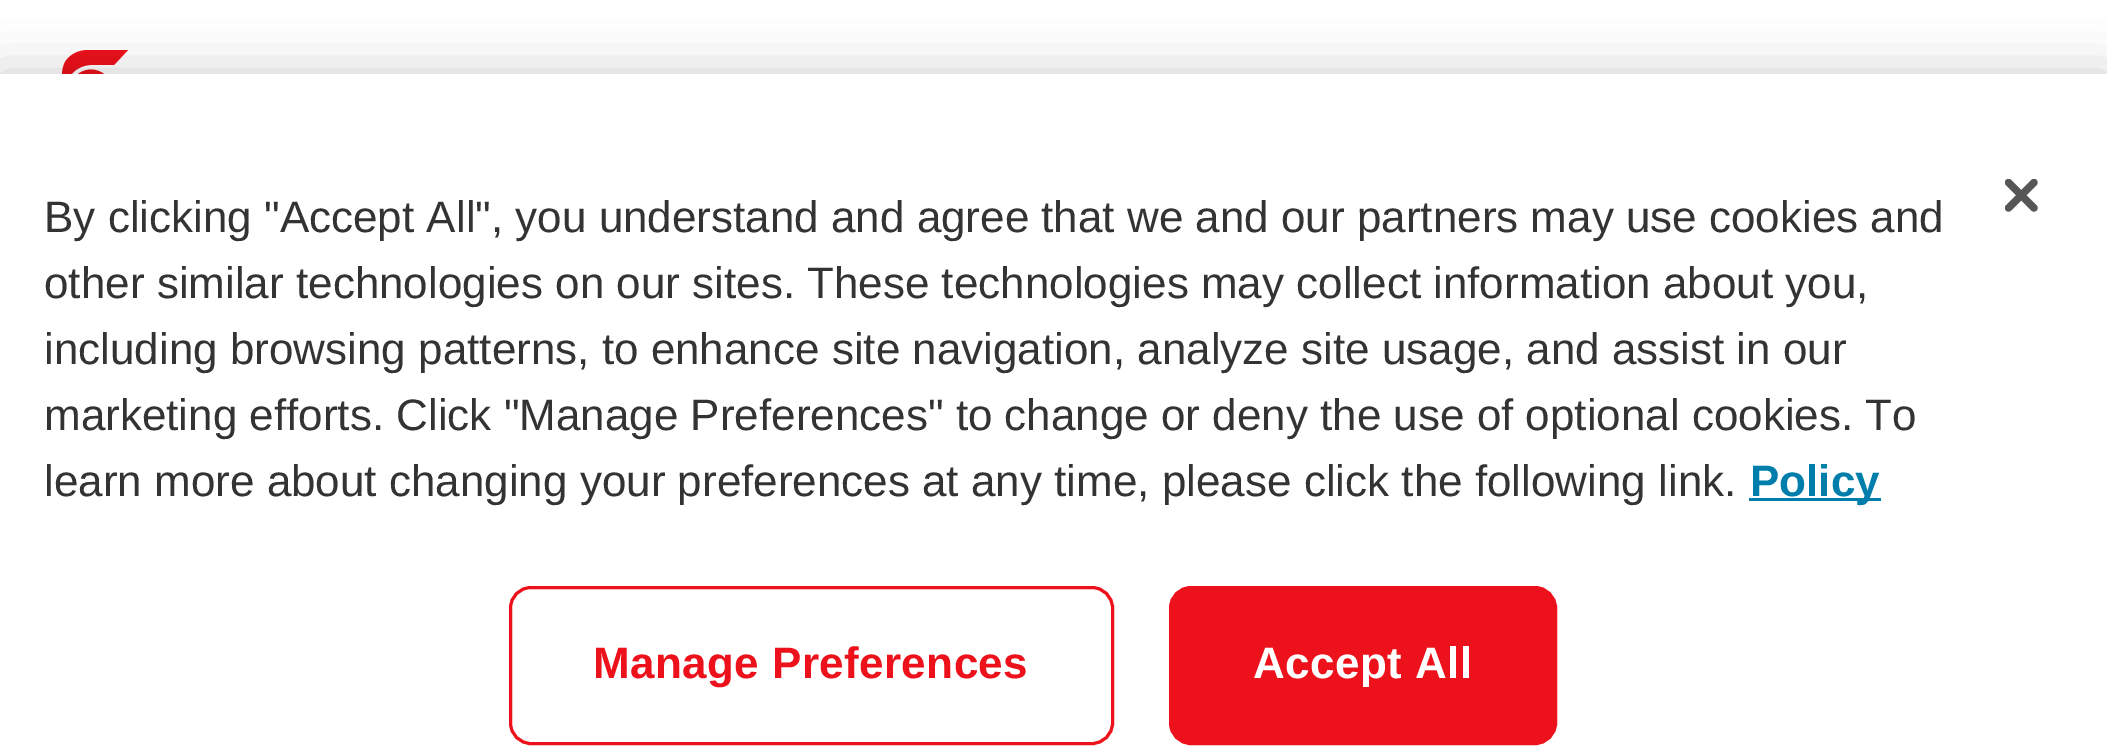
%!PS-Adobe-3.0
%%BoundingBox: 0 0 2107 750
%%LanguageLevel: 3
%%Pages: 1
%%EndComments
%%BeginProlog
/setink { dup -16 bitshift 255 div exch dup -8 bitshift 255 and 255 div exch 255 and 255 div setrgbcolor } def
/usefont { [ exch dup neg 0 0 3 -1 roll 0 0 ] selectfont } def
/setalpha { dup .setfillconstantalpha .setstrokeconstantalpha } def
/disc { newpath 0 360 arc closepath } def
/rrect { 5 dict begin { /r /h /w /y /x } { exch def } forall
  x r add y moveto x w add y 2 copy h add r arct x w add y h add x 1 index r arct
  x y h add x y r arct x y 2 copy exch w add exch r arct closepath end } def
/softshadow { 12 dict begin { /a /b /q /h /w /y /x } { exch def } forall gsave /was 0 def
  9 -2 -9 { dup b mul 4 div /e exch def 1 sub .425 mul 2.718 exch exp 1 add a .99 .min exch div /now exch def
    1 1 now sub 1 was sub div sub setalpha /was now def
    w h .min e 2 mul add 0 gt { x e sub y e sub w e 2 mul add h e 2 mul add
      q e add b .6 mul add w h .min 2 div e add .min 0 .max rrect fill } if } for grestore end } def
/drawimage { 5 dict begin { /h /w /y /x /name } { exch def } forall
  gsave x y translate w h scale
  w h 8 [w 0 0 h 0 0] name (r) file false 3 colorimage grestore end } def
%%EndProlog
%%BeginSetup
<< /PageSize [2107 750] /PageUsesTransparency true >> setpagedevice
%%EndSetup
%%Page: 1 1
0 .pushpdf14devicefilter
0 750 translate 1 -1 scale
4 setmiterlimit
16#FFFFFF setink
0 0 2107 750 rectfill
16#EC111A setink
114 65 moveto 91 65 lineto 78 65 67 75 65 88 curveto 61 80 61 70 65 62 curveto 70 54 79 50 88 50 curveto 128 50 lineto closepath fill
91 90.5 21 disc fill
16#000000 setink
0 74 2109 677 0 25 0.2 softshadow
16#FFFFFF setink
0 74 2107 676 rectfill
(img1.raw) 2005 179 33 33 drawimage
/LiberationSans-Regular 44 usefont
16#333333 setink
[
    [(By clicking "Accept All", you understand and agree that we and our partners may use cookies and) 44 232]
    [(other similar technologies on our sites. These technologies may collect information about you,) 44 298]
    [(including browsing patterns, to enhance site navigation, analyze site usage, and assist in our) 44 364]
    [(marketing efforts. Click "Manage Preferences" to change or deny the use of optional cookies. To) 44 430]
    [(learn more about changing your preferences at any time, please click the following link.) 44 496]
] { aload pop moveto show } forall
16#007EAB setink
1749 498 132 3 rectfill
/LiberationSans-Bold 44 usefont
1750 496 moveto (Policy) show
16#EC111A setink
3 setlinewidth
510.5 587.5 602 156 20.5 rrect stroke
593 678 moveto 0.4 0 (Manage Preferences) ashow
1170.5 587.5 385 156 20.5 rrect gsave fill grestore
stroke
16#FFFFFF setink
1253 678 moveto 0.4 0 (Accept All) ashow
.poppdf14devicefilter showpage
%%EOF
